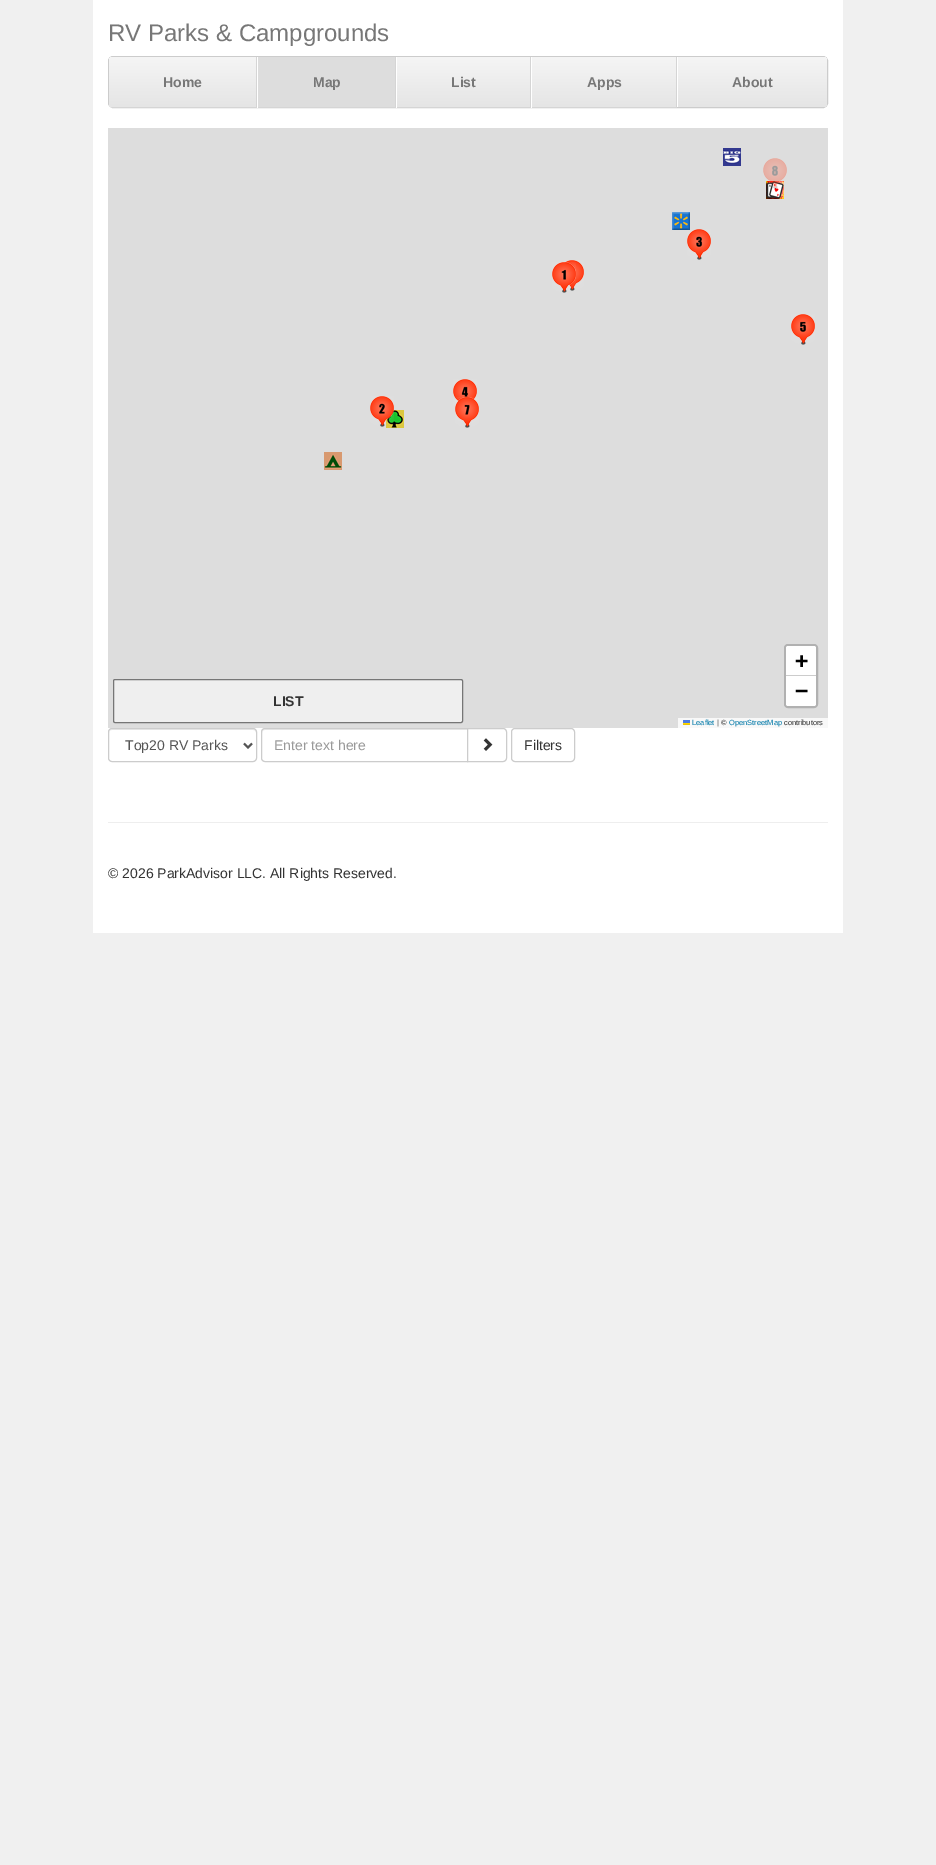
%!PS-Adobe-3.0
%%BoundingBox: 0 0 936 1865
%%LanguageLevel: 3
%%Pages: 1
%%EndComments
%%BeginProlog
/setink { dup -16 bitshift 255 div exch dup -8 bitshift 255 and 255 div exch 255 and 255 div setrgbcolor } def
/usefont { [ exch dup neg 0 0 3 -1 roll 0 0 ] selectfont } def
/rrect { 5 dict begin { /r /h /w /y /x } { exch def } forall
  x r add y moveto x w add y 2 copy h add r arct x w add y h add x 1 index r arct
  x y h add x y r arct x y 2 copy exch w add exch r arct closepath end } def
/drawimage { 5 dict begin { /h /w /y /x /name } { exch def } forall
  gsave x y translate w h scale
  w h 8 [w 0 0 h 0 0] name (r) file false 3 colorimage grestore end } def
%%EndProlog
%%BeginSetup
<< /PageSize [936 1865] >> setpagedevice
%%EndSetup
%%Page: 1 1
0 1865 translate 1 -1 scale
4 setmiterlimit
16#F0F0F0 setink
0 0 936 1865 rectfill
16#FFFFFF setink
93 0 750 933 rectfill
/LiberationSans-Regular 24 usefont
16#777777 setink
108 41 moveto (RV Parks & Campgrounds) show
16#EEEEEE setink
108.5 56.5 719 51 4.5 rrect gsave fill grestore
16#CCCCCC setink
stroke
16#E5E5E5 setink
114 57 moveto 257 57 lineto 257 108 lineto 114 108 lineto 111 108 109 106 109 103 curveto 109 62 lineto 109 59 111 57 114 57 curveto closepath fill
gsave
114 57 moveto 257 57 lineto 257 108 lineto 114 108 lineto 111 108 109 106 109 103 curveto 109 62 lineto 109 59 111 57 114 57 curveto closepath clip newpath
gsave 114 57 moveto 257 57 lineto 257 107 lineto 109 107 lineto 109 62 lineto 109 59 111 57 114 57 curveto closepath clip newpath
<< /ShadingType 2 /ColorSpace /DeviceRGB /Coords [183 57 183 107] /Extend [true true] /Function << /FunctionType 2 /Domain [0 1] /C0 [0.961 0.961 0.961] /C1 [0.898 0.898 0.898] /N 1 >> >> shfill grestore
grestore
16#D5D5D5 setink
256 57 1 51 rectfill
112 107 145 1 rectfill
/LiberationSans-Bold 14 usefont
16#777777 setink
163 87 moveto (Home) show
[
    [258 57 137 50 16#DDDDDD]
    [395 57 1 51 16#D5D5D5]
    [257 107 139 1 16#D5D5D5]
    [257 57 1 51 16#FFFFFF]
] { aload pop setink rectfill } forall
16#777777 setink
313 87 moveto (Map) show
gsave 397 57 moveto 530 57 lineto 530 107 lineto 397 107 lineto closepath clip newpath
<< /ShadingType 2 /ColorSpace /DeviceRGB /Coords [464 57 464 107] /Extend [true true] /Function << /FunctionType 2 /Domain [0 1] /C0 [0.961 0.961 0.961] /C1 [0.898 0.898 0.898] /N 1 >> >> shfill grestore
[
    [530 57 1 51 16#D5D5D5]
    [396 107 135 1 16#D5D5D5]
    [396 57 1 51 16#FFFFFF]
] { aload pop setink rectfill } forall
16#777777 setink
451 87 moveto (List) show
gsave 532 57 moveto 676 57 lineto 676 107 lineto 532 107 lineto closepath clip newpath
<< /ShadingType 2 /ColorSpace /DeviceRGB /Coords [604 57 604 107] /Extend [true true] /Function << /FunctionType 2 /Domain [0 1] /C0 [0.961 0.961 0.961] /C1 [0.898 0.898 0.898] /N 1 >> >> shfill grestore
[
    [676 57 1 51 16#D5D5D5]
    [531 107 146 1 16#D5D5D5]
    [531 57 1 51 16#FFFFFF]
] { aload pop setink rectfill } forall
16#777777 setink
587 87 moveto (Apps) show
gsave 677 57 moveto 822 57 lineto 825 57 827 59 827 62 curveto 827 102 lineto 827 105 825 107 822 107 curveto 677 107 lineto closepath clip newpath
<< /ShadingType 2 /ColorSpace /DeviceRGB /Coords [753 57 753 107] /Extend [true true] /Function << /FunctionType 2 /Domain [0 1] /C0 [0.961 0.961 0.961] /C1 [0.898 0.898 0.898] /N 1 >> >> shfill grestore
16#FFFFFF setink
677 57 1 50 rectfill
16#777777 setink
732 87 moveto (About) show
16#ECECEC setink
112 730 moveto 253 730 lineto 255 730 256 731 256 733 curveto 256 731 256 730 254 729 curveto 136 729 lineto 128 729 109 724 109 733 curveto 109 731 110 730 112 730 curveto closepath fill
16#DDDDDD setink
108 128 720 600 rectfill
16#EFEFEF setink
113.5 679.5 349 43 1.5 rrect gsave fill grestore
16#767676 setink
stroke
16#333333 setink
273 706 moveto (LIST) show
(img1.raw) 723 148 18 18 drawimage
(img3.raw) 766 181 18 18 drawimage
(img2.raw) 763 158 24 31 drawimage
(img4.raw) 672 212 18 18 drawimage
(img5.raw) 687 229 24 31 drawimage
(img6.raw) 560 260 24 31 drawimage
(img7.raw) 552 262 24 31 drawimage
(img8.raw) 791 314 24 31 drawimage
(img9.raw) 453 379 24 26 drawimage
(img11.raw) 386 410 18 18 drawimage
(img10.raw) 370 396 24 31 drawimage
(img12.raw) 455 397 24 31 drawimage
(img13.raw) 324 452 18 18 drawimage
16#B1B1B1 setink
2 setlinewidth
785 645 32 62 3 rrect stroke
16#FFFFFF setink
788 646 moveto 814 646 lineto 815 646 816 647 816 648 curveto 816 676 lineto 786 676 lineto 786 648 lineto 786 647 787 646 788 646 curveto closepath fill
16#CCCCCC setink
786 675 30 1 rectfill
/DejaVuSansMono-Bold 22 usefont
16#000000 setink
795 668 moveto (+) show
16#FFFFFF setink
786 676 moveto 816 676 lineto 816 704 lineto 816 705 815 706 814 706 curveto 788 706 lineto 787 706 786 705 786 704 curveto closepath fill
16#000000 setink
795 698 moveto (−) show
16#F8F8F8 setink
678 718 150 10 rectfill
(img14.raw) 683 720 7 5 drawimage
/LiberationSans-Regular 7.5 usefont
16#0078A8 setink
692 725 moveto (Leaflet) show
16#333333 setink
717 725 moveto (| ©) show
16#0078A8 setink
729 725 moveto (OpenStreetMap) show
16#333333 setink
784 725 moveto (contributors) show
16#CCCCCC setink
1 setlinewidth
108.5 728.5 148 33 3.5 rrect stroke
16#555555 setink
2 setlinewidth
244 743.5 moveto 248 747.5 lineto 252 743.5 lineto stroke
/LiberationSans-Regular 14 usefont
125 750 moveto (Top20 RV Parks) show
16#ECECEC setink
265 730 moveto 467 730 lineto 467 729 lineto 264 729 lineto 262 730 262 731 262 733 curveto 262 731 263 730 265 730 curveto closepath fill
16#CCCCCC setink
1 setlinewidth
265 728.5 moveto 467.5 728.5 lineto 467.5 761.5 lineto 265 761.5 lineto 263 761.5 261.5 760 261.5 758 curveto 261.5 732 lineto 261.5 730 263 728.5 265 728.5 curveto closepath stroke
16#999999 setink
274 750 moveto (Enter text here) show
16#FFFFFF setink
467.5 728.5 moveto 503 728.5 lineto 505 728.5 506.5 730 506.5 732 curveto 506.5 758 lineto 506.5 760 505 761.5 503 761.5 curveto 467.5 761.5 lineto closepath gsave fill grestore
16#CCCCCC setink
stroke
(img15.raw) 483 738 10 13 drawimage
511.5 728.5 63 33 3.5 rrect stroke
16#333333 setink
524 750 moveto (Filters) show
16#EEEEEE setink
108 822 720 1 rectfill
16#333333 setink
108 878 moveto (© 2026 ParkAdvisor LLC. All Rights Reserved.) show
showpage
%%EOF
